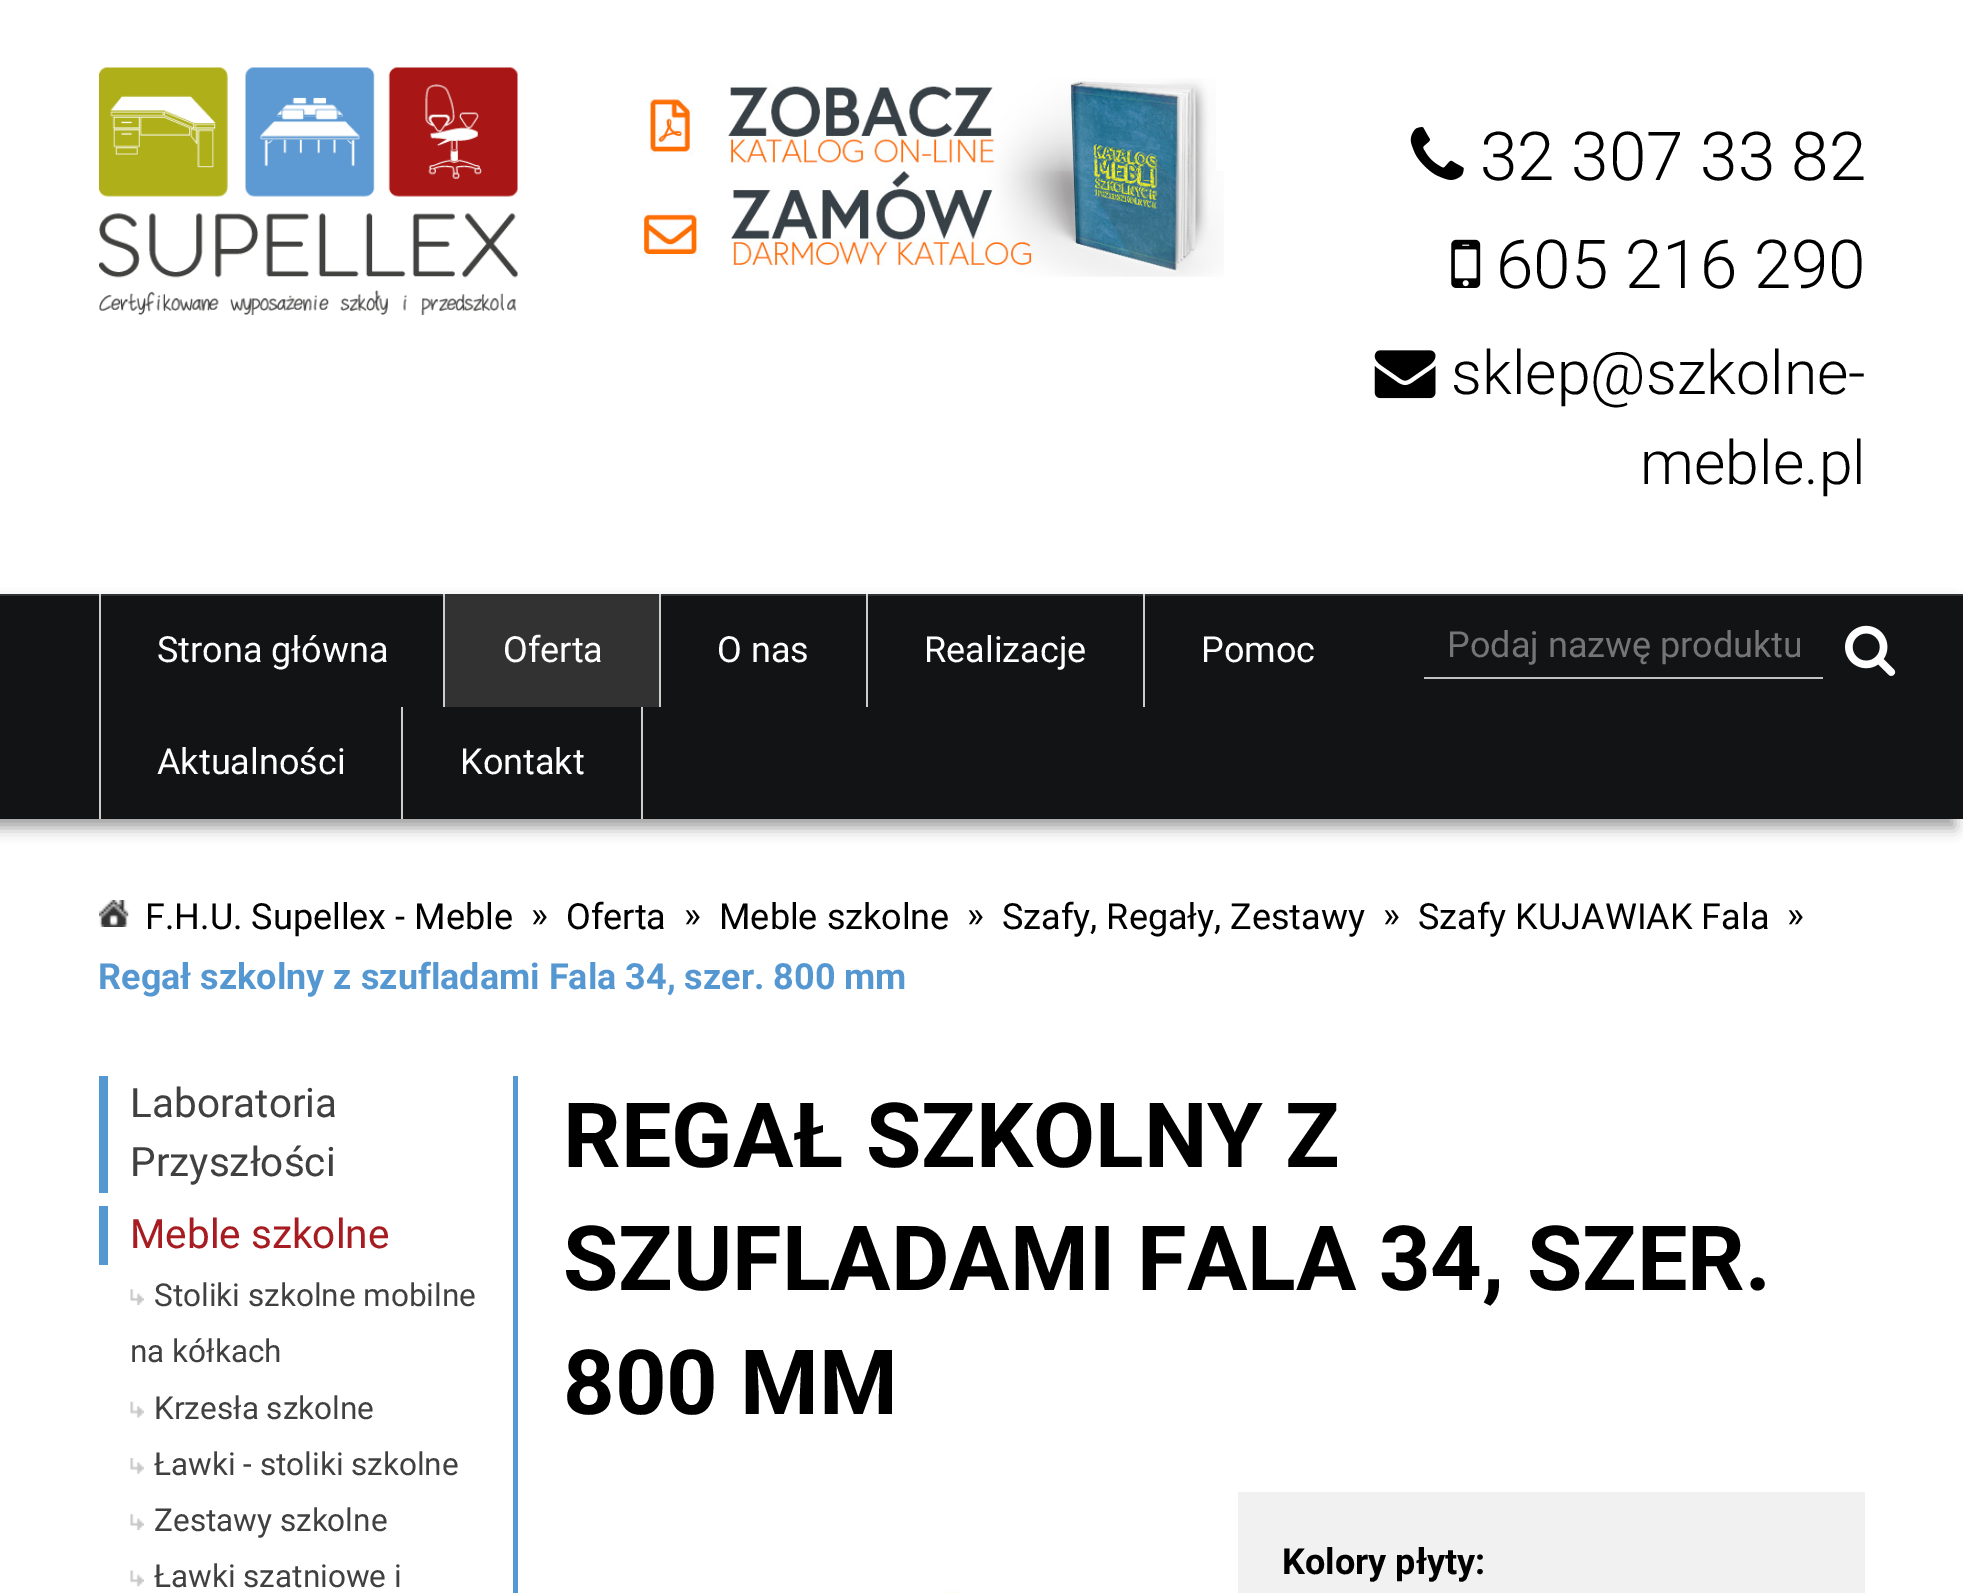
%!PS-Adobe-3.0
%%BoundingBox: 0 0 1963 1593
%%LanguageLevel: 3
%%Pages: 1
%%EndComments
%%BeginProlog
/setink { dup -16 bitshift 255 div exch dup -8 bitshift 255 and 255 div exch 255 and 255 div setrgbcolor } def
/usefont { [ exch dup neg 0 0 3 -1 roll 0 0 ] selectfont } def
/setalpha { dup .setfillconstantalpha .setstrokeconstantalpha } def
/rrect { 5 dict begin { /r /h /w /y /x } { exch def } forall
  x r add y moveto x w add y 2 copy h add r arct x w add y h add x 1 index r arct
  x y h add x y r arct x y 2 copy exch w add exch r arct closepath end } def
/softshadow { 12 dict begin { /a /b /q /h /w /y /x } { exch def } forall gsave /was 0 def
  9 -2 -9 { dup b mul 4 div /e exch def 1 sub .425 mul 2.718 exch exp 1 add a .99 .min exch div /now exch def
    1 1 now sub 1 was sub div sub setalpha /was now def
    w h .min e 2 mul add 0 gt { x e sub y e sub w e 2 mul add h e 2 mul add
      q e add b .6 mul add w h .min 2 div e add .min 0 .max rrect fill } if } for grestore end } def
/drawimage { 5 dict begin { /h /w /y /x /name } { exch def } forall
  gsave x y translate w h scale
  w h 8 [w 0 0 h 0 0] name (r) file false 3 colorimage grestore end } def
%%EndProlog
%%BeginSetup
<< /PageSize [1963 1593] /PageUsesTransparency true >> setpagedevice
%%EndSetup
%%Page: 1 1
0 .pushpdf14devicefilter
0 1593 translate 1 -1 scale
4 setmiterlimit
16#FFFFFF setink
0 0 1963 1593 rectfill
(img1.raw) 99 67 419 248 drawimage
(img2.raw) 650 78 566 93 drawimage
(img3.raw) 642 171 582 106 drawimage
(img4.raw) 1410 127 54 53 drawimage
/Roboto-Light 67.5 usefont
16#000000 setink
1480 180 moveto (32 307 33 82) show
(img5.raw) 1451 239 30 49 drawimage
1496 288 moveto (605 216 290) show
(img6.raw) 1374 350 62 49 drawimage
/Roboto-Light 60.75 usefont
1451 394 moveto (sklep@szkolne-) show
1640 484 moveto (meble.pl) show
16#191919 setink
-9 603 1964 225 0 7 0.4 softshadow
[
    [0 596 1963 223 16#121314]
    [0 594 1963 2 16#303133]
    [99 594 2 225 16#CCCCCC]
] { aload pop setink rectfill } forall
/Roboto-Regular 36 usefont
16#FFFFFF setink
157 662 moveto (Strona główna) show
16#323232 setink
445 596 214 111 rectfill
16#CCCCCC setink
443 594 2 113 rectfill
16#FFFFFF setink
503 662 moveto (Oferta) show
16#CCCCCC setink
659 594 2 113 rectfill
16#FFFFFF setink
717 662 moveto (O nas) show
16#CCCCCC setink
866 594 2 113 rectfill
16#FFFFFF setink
924 662 moveto (Realizacje) show
16#CCCCCC setink
1143 594 2 113 rectfill
16#FFFFFF setink
1201 662 moveto (Pomoc) show
157 774 moveto (Aktualności) show
16#CCCCCC setink
641 707 2 112 rectfill
401 707 2 112 rectfill
16#FFFFFF setink
460 774 moveto (Kontakt) show
16#C2C2C2 setink
1424 677 399 2 rectfill
gsave
1447 623 353 43 rectclip
16#757575 setink
1447 657 moveto (Podaj nazwę produktu) show
grestore
(img7.raw) 1845 625 51 51 drawimage
(img8.raw) 99 900 30 27 drawimage
16#000000 setink
[
    [(F.H.U. Supellex - Meble) 145 929]
    [(») 531 927]
    [(Oferta) 566 929]
    [(») 684 927]
    [(Meble szkolne) 719 929]
    [(») 967 927]
    [(Szafy, Regały, Zestawy) 1002 929]
    [(») 1383 927]
    [(Szafy KUJAWIAK Fala) 1418 929]
    [(») 1787 927]
] { aload pop moveto show } forall
/Roboto-Bold 36 usefont
16#5597D1 setink
98 989 moveto (Regał szkolny z szufladami Fala 34, szer. 800 mm) show
513 1076 5 517 rectfill
99 1076 9 117 rectfill
/Roboto-Regular 40.5 usefont
16#404040 setink
130 1117 moveto (Laboratoria) show
130 1176 moveto (Przyszłości) show
16#5597D1 setink
99 1206 9 59 rectfill
16#A71C20 setink
130 1248 moveto (Meble szkolne) show
(img9.raw) 130 1289 14 16 drawimage
/Roboto-Regular 31.5 usefont
16#404040 setink
154 1306 moveto (Stoliki szkolne mobilne) show
130 1362 moveto (na kółkach) show
(img10.raw) 130 1401 14 17 drawimage
154 1419 moveto (Krzesła szkolne) show
(img11.raw) 130 1458 14 16 drawimage
154 1475 moveto (Ławki - stoliki szkolne) show
(img9.raw) 130 1514 14 16 drawimage
154 1531 moveto (Zestawy szkolne) show
(img12.raw) 130 1570 14 17 drawimage
154 1587 moveto (Ławki szatniowe i) show
/Roboto-Bold 90 usefont
16#000000 setink
[
    [(REGAŁ SZKOLNY Z) 563 1167]
    [(SZUFLADAMI FALA 34, SZER.) 563 1290]
    [(800 MM) 563 1414]
] { aload pop moveto show } forall
16#F2F1F1 setink
1238 1492 627 101 rectfill
/Roboto-Bold 36 usefont
16#000000 setink
1282 1574 moveto (Kolory płyty:) show
(img13.raw) 941 1591 25 2 drawimage
.poppdf14devicefilter showpage
%%EOF
